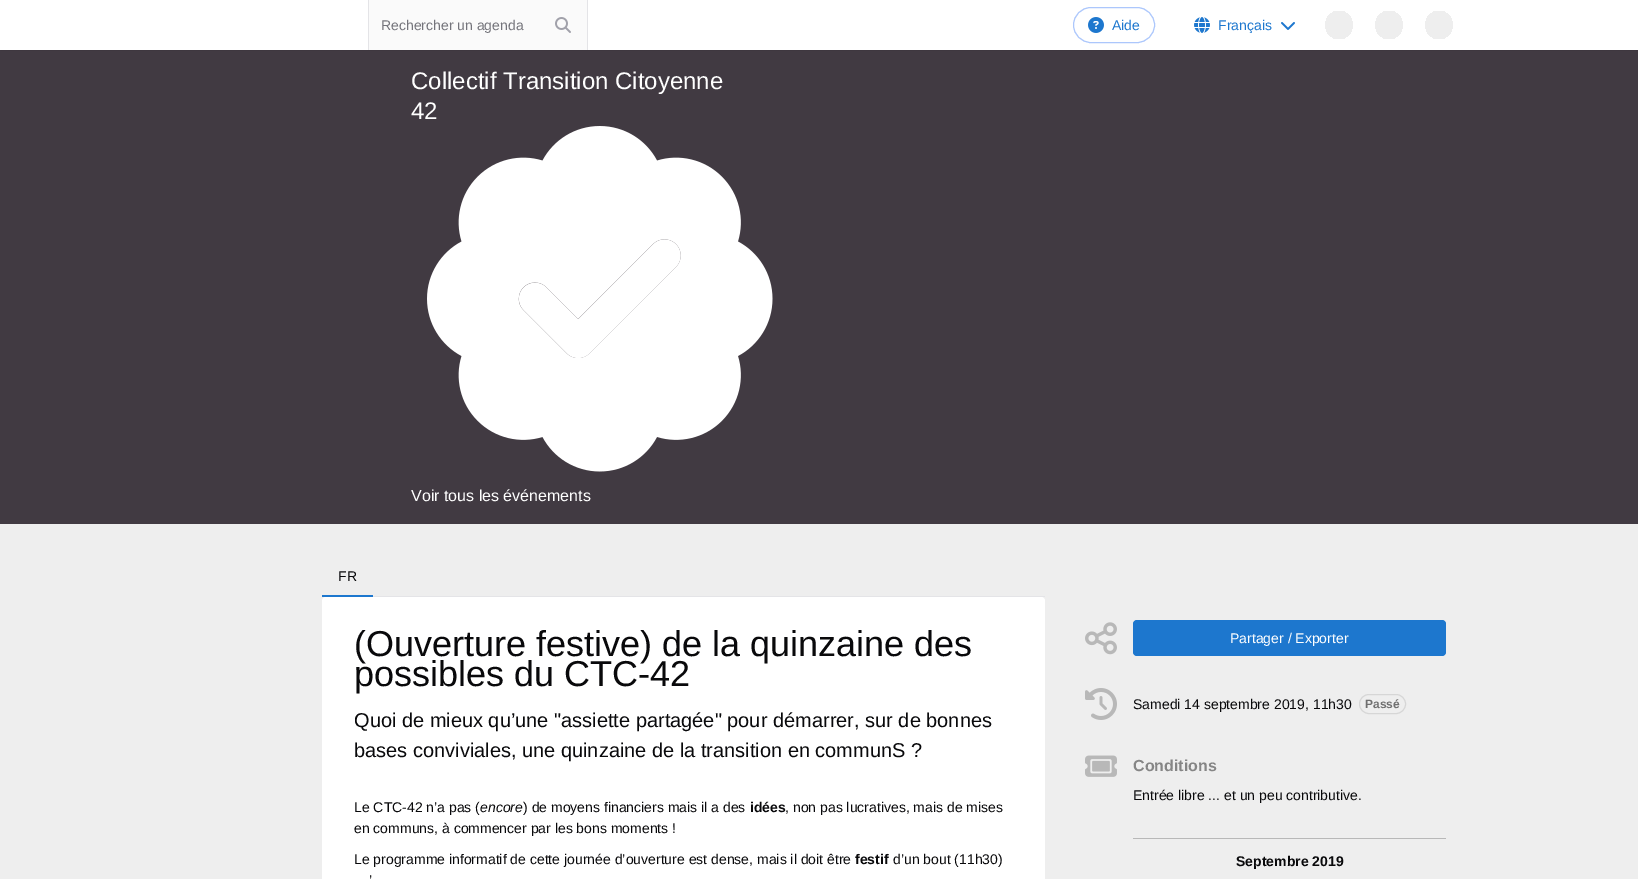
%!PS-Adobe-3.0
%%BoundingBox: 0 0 1638 879
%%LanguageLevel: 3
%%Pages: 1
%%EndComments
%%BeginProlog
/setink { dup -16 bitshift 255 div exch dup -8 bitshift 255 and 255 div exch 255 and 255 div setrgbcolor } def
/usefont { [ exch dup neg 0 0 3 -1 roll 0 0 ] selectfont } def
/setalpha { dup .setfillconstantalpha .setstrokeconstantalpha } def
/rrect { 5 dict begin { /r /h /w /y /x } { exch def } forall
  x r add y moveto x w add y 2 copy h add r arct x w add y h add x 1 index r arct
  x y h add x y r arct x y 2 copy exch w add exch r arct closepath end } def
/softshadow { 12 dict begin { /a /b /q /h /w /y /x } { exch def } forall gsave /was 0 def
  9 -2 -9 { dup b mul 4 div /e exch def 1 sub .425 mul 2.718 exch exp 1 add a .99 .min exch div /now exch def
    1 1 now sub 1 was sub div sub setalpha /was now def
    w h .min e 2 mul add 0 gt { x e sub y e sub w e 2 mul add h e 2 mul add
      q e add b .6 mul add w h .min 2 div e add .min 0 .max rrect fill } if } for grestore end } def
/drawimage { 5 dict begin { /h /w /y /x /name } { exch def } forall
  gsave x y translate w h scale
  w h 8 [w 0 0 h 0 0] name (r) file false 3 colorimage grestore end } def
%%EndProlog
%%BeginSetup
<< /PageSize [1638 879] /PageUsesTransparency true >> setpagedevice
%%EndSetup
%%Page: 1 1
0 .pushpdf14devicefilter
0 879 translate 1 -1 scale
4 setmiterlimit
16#EEEEEE setink
0 0 1638 879 rectfill
16#413A42 setink
0 50 1638 474 rectfill
16#18181B setink
0 1 1638 50 0 1 0.1 softshadow
[
    [0 0 1638 50 16#FFFFFF]
    [369 0 218 50 16#FAFAFA]
    [587 0 1 50 16#E4E4E7]
    [368 0 1 50 16#E4E4E7]
] { aload pop setink rectfill } forall
/LiberationSans-Regular 14 usefont
16#74747B setink
381 30 moveto (Rechercher un agenda) show
(img1.raw) 555 17 16 16 drawimage
16#ACC7FC setink
1073.5 7.5 81 35 17.5 rrect stroke
(img2.raw) 1088 17 16 16 drawimage
16#1D77CE setink
1112 30 moveto (Aide) show
(img3.raw) 1194 17 16 16 drawimage
1218 30 moveto (Français) show
(img4.raw) 1281 22 14 8 drawimage
gsave 1339 11 moveto 1321 11 1321 39 1339 39 curveto 1357 39 1357 11 1339 11 curveto closepath 1389 11 moveto 1371 11 1371 39 1389 39 curveto 1407 39 1407 11 1389 11 curveto closepath 1439 11 moveto 1421 11 1421 39 1439 39 curveto 1457 39 1457 11 1439 11 curveto closepath eoclip newpath
<< /ShadingType 2 /ColorSpace /DeviceRGB /Coords [1039 5 1179 5] /Extend [true true] /Function << /FunctionType 3 /Domain [0 1] /Functions [<< /FunctionType 2 /Domain [0 1] /C0 [0.933 0.933 0.933] /C1 [0.839 0.839 0.839] /N 1 >> << /FunctionType 2 /Domain [0 1] /C0 [0.839 0.839 0.839] /C1 [0.933 0.933 0.933] /N 1 >>] /Bounds [0.5] /Encode [0 1 0 1] >> >> shfill grestore
/LiberationSans-Regular 24 usefont
16#FFFFFF setink
411 89 moveto (Collectif Transition Citoyenne) show
411 119 moveto (42) show
(img5.raw) 427 126 346 346 drawimage
/LiberationSans-Regular 16 usefont
411 501 moveto (Voir tous les événements) show
16#E4E4E7 setink
373 596 672 1 rectfill
/LiberationSans-Regular 14 usefont
16#09090B setink
338 581 moveto (FR) show
16#1D77CE setink
322 595 51 2 rectfill
16#FFFFFF setink
322 597 723 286 4 rrect fill
/LiberationSans-Regular 36 usefont
16#09090B setink
354 656 moveto (\(Ouverture festive\) de la quinzaine des) show
354 686 moveto (possibles du CTC-42) show
/LiberationSans-Regular 20 usefont
354 727 moveto (Quoi de mieux qu’une "assiette partagée" pour démarrer, sur de bonnes) show
354 757 moveto (bases conviviales, une quinzaine de la transition en communS ?) show
/LiberationSans-Regular 14 usefont
354 812 moveto (Le CTC-42 n’a pas \() show
/LiberationSans-Italic 14 usefont
480 812 moveto (encore) show
/LiberationSans-Regular 14 usefont
523 812 moveto (\) de moyens financiers mais il a des) show
/LiberationSans-Bold 14 usefont
750 812 moveto (idées) show
/LiberationSans-Regular 14 usefont
[
    [(, non pas lucratives, mais de mises) 785 812]
    [(en communs, à commencer par les bons moments !) 354 833]
    [(Le programme informatif de cette journée d’ouverture est dense, mais il doit être) 354 864]
] { aload pop moveto show } forall
/LiberationSans-Bold 14 usefont
855 864 moveto (festif) show
/LiberationSans-Regular 14 usefont
893 864 moveto (d’un bout \(11h30\)) show
369 885 moveto (’) show
(img6.raw) 1085 622 32 33 drawimage
16#1D77CE setink
1133 620 313 36 4 rrect fill
16#FFFFFF setink
1230 643 moveto (Partager / Exporter) show
(img7.raw) 1085 688 32 32 drawimage
16#09090B setink
1133 709 moveto (Samedi 14 septembre 2019, 11h30) show
16#D6D6D6 setink
1359.5 694.5 46 19 9.5 rrect stroke
/LiberationSans-Bold 12 usefont
16#707070 setink
1365 708 moveto (Passé) show
(img8.raw) 1085 755 32 22 drawimage
/LiberationSans-Bold 16 usefont
16#858585 setink
1133 771 moveto (Conditions) show
/LiberationSans-Regular 14 usefont
16#09090B setink
1133 800 moveto (Entrée libre ... et un peu contributive.) show
16#B8B8B8 setink
1133 838 313 1 rectfill
/LiberationSans-Bold 14 usefont
16#09090B setink
1236 866 moveto (Septembre 2019) show
.poppdf14devicefilter showpage
%%EOF
